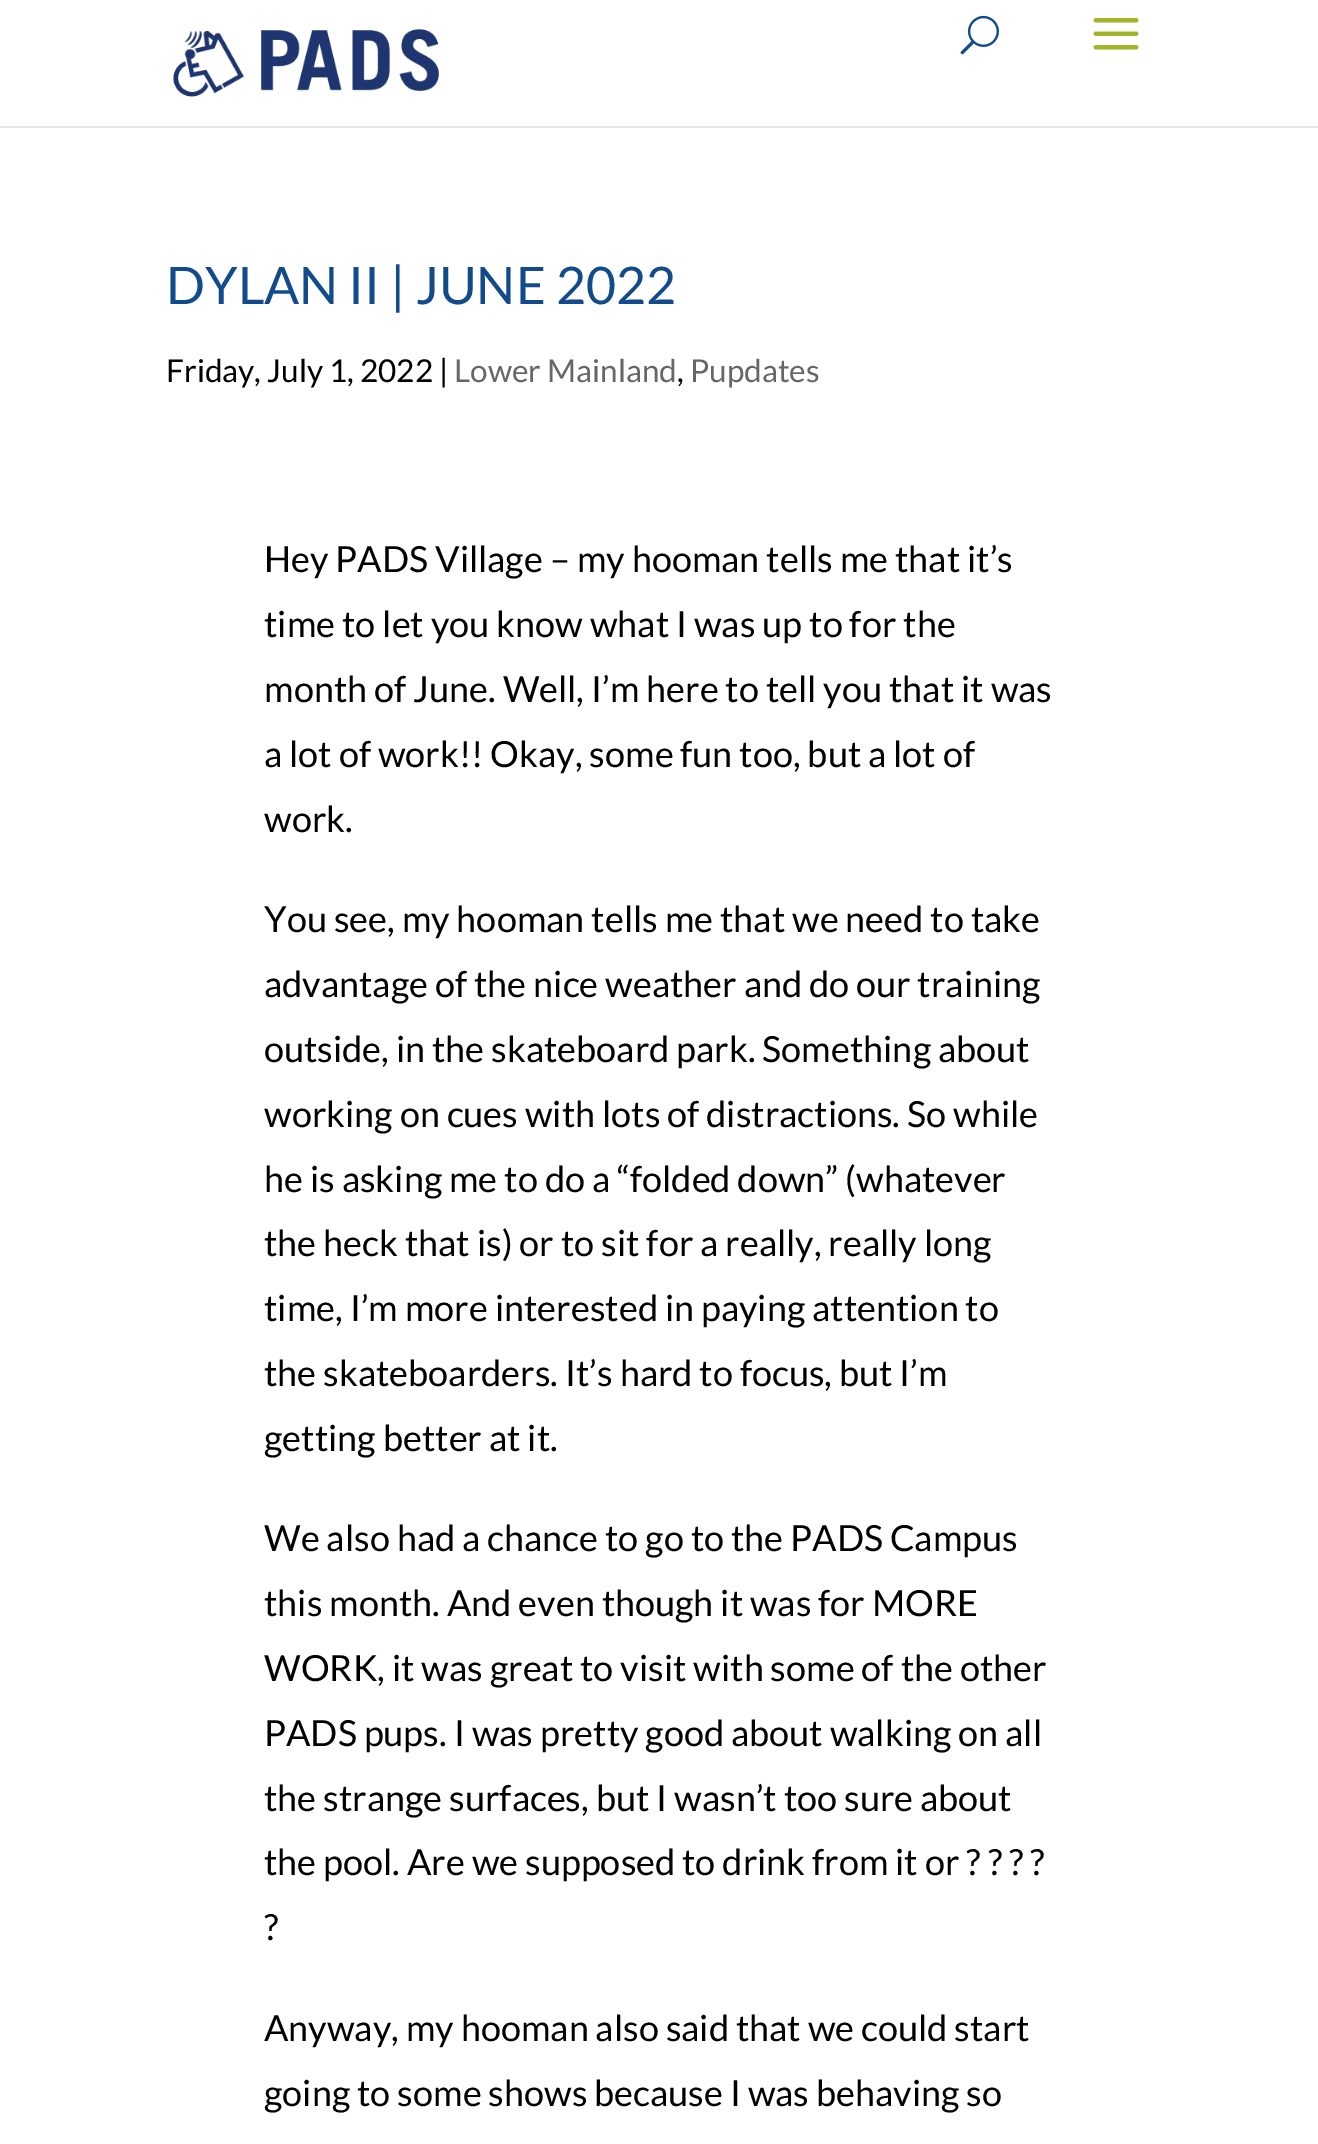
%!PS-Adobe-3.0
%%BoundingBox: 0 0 1318 2144
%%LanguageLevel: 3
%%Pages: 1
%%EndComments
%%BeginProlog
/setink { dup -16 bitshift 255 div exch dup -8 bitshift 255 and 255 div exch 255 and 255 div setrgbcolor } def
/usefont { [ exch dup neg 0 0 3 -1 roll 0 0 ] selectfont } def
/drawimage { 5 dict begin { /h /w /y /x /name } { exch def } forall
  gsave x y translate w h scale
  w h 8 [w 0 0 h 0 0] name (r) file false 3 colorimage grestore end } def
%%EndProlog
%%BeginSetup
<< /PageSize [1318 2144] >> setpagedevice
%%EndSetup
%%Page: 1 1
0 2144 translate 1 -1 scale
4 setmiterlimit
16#FFFFFF setink
0 0 1318 2144 rectfill
16#E6E6E6 setink
0 126 moveto 0 128 lineto 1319 128 lineto 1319 2 lineto 1318 2 lineto 1318 126 lineto closepath fill
(img1.raw) 173 29 266 68 drawimage
(img2.raw) 960 15 39 40 drawimage
(img3.raw) 1093 18 46 32 drawimage
/Lato-Regular 51.75 usefont
16#124B8C setink
166 304 moveto (DYLAN II | JUNE 2022) show
/Lato-Regular 31.5 usefont
16#000000 setink
166 382 moveto (Friday, July 1, 2022 |) show
16#666666 setink
454 382 moveto (Lower Mainland) show
16#000000 setink
677 382 moveto (,) show
16#666666 setink
690 382 moveto (Pupdates) show
/Lato-Regular 36 usefont
16#000000 setink
[
    [(Hey PADS Village – my hooman tells me that it’s) 264 572]
    [(time to let you know what I was up to for the) 264 637]
    [(month of June. Well, I’m here to tell you that it was) 264 702]
    [(a lot of work!! Okay, some fun too, but a lot of) 264 767]
    [(work.) 264 832]
    [(You see, my hooman tells me that we need to take) 264 932]
    [(advantage of the nice weather and do our training) 264 997]
    [(outside, in the skateboard park. Something about) 264 1062]
    [(working on cues with lots of distractions. So while) 264 1127]
    [(he is asking me to do a “folded down” \(whatever) 264 1192]
    [(the heck that is\) or to sit for a really, really long) 264 1256]
    [(time, I’m more interested in paying attention to) 264 1321]
    [(the skateboarders. It’s hard to focus, but I’m) 264 1386]
    [(getting better at it.) 264 1451]
    [(We also had a chance to go to the PADS Campus) 264 1551]
    [(this month. And even though it was for MORE) 264 1616]
    [(WORK, it was great to visit with some of the other) 264 1681]
    [(PADS pups. I was pretty good about walking on all) 264 1746]
    [(the strange surfaces, but I wasn’t too sure about) 264 1811]
    [(the pool. Are we supposed to drink from it or ? ? ? ?) 264 1875]
    [(?) 264 1940]
    [(Anyway, my hooman also said that we could start) 264 2041]
    [(going to some shows because I was behaving so) 264 2106]
] { aload pop moveto show } forall
showpage
%%EOF
